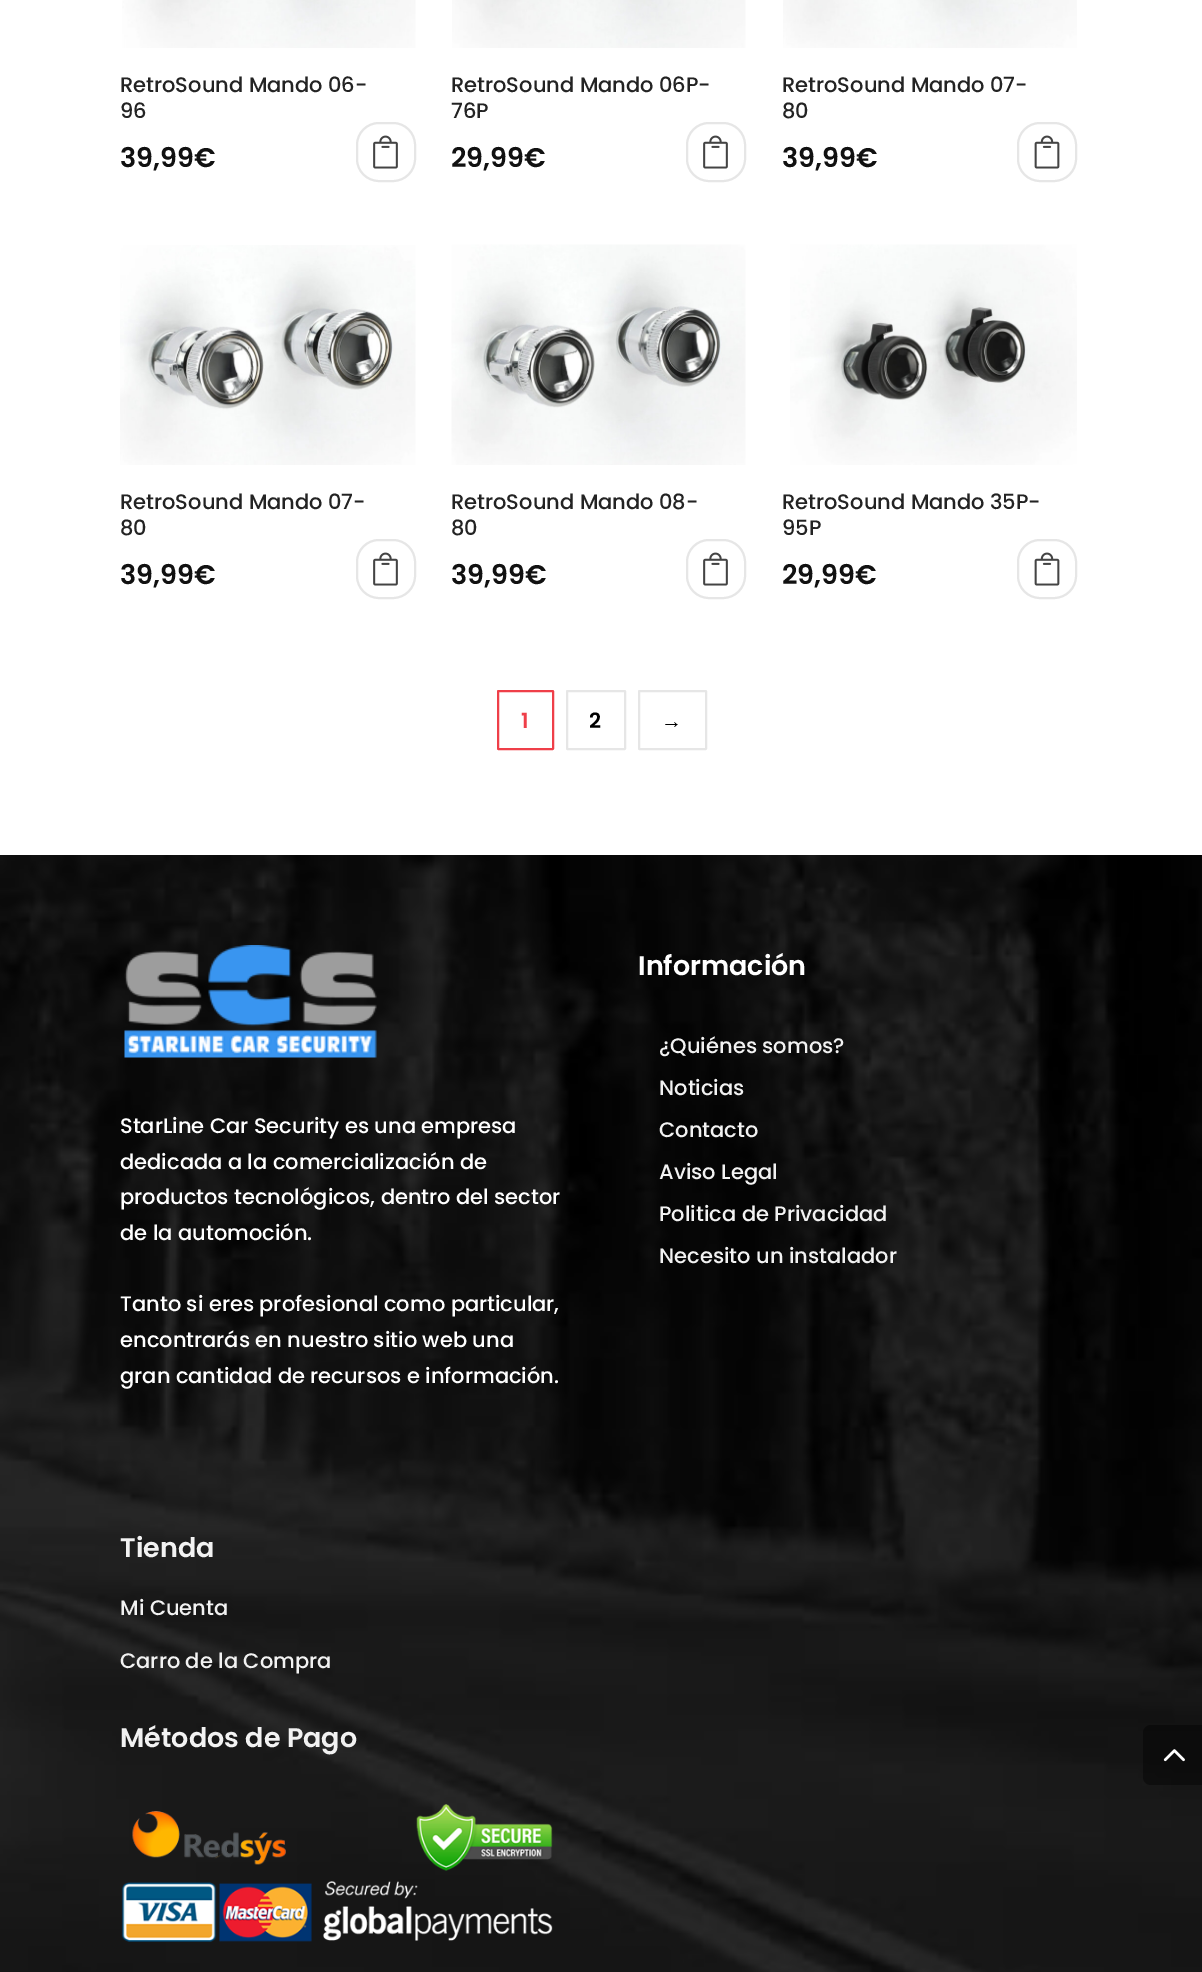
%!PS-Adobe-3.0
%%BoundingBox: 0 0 1202 1972
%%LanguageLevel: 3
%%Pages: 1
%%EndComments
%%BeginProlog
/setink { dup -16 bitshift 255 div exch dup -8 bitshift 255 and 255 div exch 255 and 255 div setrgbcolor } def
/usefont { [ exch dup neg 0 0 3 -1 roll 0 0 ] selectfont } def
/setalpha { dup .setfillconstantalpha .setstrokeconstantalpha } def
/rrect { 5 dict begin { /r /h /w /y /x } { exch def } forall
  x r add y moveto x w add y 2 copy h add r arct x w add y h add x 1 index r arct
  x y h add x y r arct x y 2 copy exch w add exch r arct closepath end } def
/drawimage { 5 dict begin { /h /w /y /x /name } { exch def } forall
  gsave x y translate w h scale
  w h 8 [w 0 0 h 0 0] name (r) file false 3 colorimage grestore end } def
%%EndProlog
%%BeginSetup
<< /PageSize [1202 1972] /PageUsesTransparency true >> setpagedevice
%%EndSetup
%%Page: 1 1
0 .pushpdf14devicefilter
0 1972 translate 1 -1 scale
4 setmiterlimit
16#FFFFFF setink
0 0 1202 1972 rectfill
(img1.raw) 122 0 294 48 drawimage
/Poppins-Medium 21 usefont
16#232323 setink
120 92 moveto (RetroSound Mando 06-) show
120 118 moveto (96) show
/Poppins-SemiBold 27 usefont
16#111111 setink
120 167 moveto (39,99€) show
16#E6E6E6 setink
2 setlinewidth
357 123 58 58 22 rrect stroke
(img2.raw) 373 135 25 34 drawimage
(img3.raw) 452 0 294 48 drawimage
/Poppins-Medium 21 usefont
16#232323 setink
451 92 moveto (RetroSound Mando 06P-) show
451 118 moveto (76P) show
/Poppins-SemiBold 27 usefont
16#111111 setink
451 167 moveto (29,99€) show
16#E6E6E6 setink
687 123 58 58 22 rrect stroke
(img2.raw) 703 135 25 34 drawimage
(img4.raw) 783 0 294 48 drawimage
/Poppins-Medium 21 usefont
16#232323 setink
782 92 moveto (RetroSound Mando 07-) show
782 118 moveto (80) show
/Poppins-SemiBold 27 usefont
16#111111 setink
782 167 moveto (39,99€) show
16#E6E6E6 setink
1018 123 58 58 22 rrect stroke
(img5.raw) 1034 135 26 34 drawimage
(img6.raw) 120 245 296 220 drawimage
/Poppins-Medium 21 usefont
16#232323 setink
120 509 moveto (RetroSound Mando 07-) show
120 535 moveto (80) show
/Poppins-SemiBold 27 usefont
16#111111 setink
120 584 moveto (39,99€) show
16#E6E6E6 setink
357 540 58 58 22 rrect stroke
(img2.raw) 373 552 25 34 drawimage
(img7.raw) 451 244 295 221 drawimage
/Poppins-Medium 21 usefont
16#232323 setink
451 509 moveto (RetroSound Mando 08-) show
451 535 moveto (80) show
/Poppins-SemiBold 27 usefont
16#111111 setink
451 584 moveto (39,99€) show
16#E6E6E6 setink
687 540 58 58 22 rrect stroke
(img2.raw) 703 552 25 34 drawimage
(img8.raw) 790 244 287 221 drawimage
/Poppins-Medium 21 usefont
16#232323 setink
782 509 moveto (RetroSound Mando 35P-) show
782 535 moveto (95P) show
/Poppins-SemiBold 27 usefont
16#111111 setink
782 584 moveto (29,99€) show
16#E6E6E6 setink
1018 540 58 58 22 rrect stroke
(img5.raw) 1034 552 26 34 drawimage
16#EF3F49 setink
498 691 55 58 0.5 rrect stroke
/Poppins-SemiBold 21 usefont
521 728 moveto (1) show
16#E6E6E6 setink
567 691 58 58 0.5 rrect stroke
16#000000 setink
589 728 moveto (2) show
16#E6E6E6 setink
639 691 67 58 0.5 rrect stroke
/LiberationSans-Bold 21 usefont
16#000000 setink
661 728 moveto (→) show
(img9.raw) 0 855 1202 1117 drawimage
(img10.raw) 124 945 253 113 drawimage
/Poppins-Medium 21 usefont
16#FFFFFF setink
[
    [(StarLine Car Security es una empresa) 120 1133]
    [(dedicada a la comercialización de) 120 1169]
    [(productos tecnológicos, dentro del sector) 120 1204]
    [(de la automoción.) 120 1240]
    [(Tanto si eres profesional como particular,) 120 1311]
    [(encontrarás en nuestro sitio web una) 120 1347]
    [(gran cantidad de recursos e información.) 120 1383]
] { aload pop moveto show } forall
/Poppins-SemiBold 27 usefont
638 975 moveto (Información) show
/Poppins-Medium 21 usefont
16#F2F2F2 setink
[
    [(¿Quiénes somos?) 659 1053]
    [(Noticias) 659 1095]
    [(Contacto) 659 1137]
    [(Aviso Legal) 659 1179]
    [(Politica de Privacidad) 659 1221]
    [(Necesito un instalador) 659 1263]
] { aload pop moveto show } forall
/Poppins-SemiBold 27 usefont
120 1557 moveto (Tienda) show
/Poppins-Medium 21 usefont
120 1615 moveto (Mi Cuenta) show
120 1668 moveto (Carro de la Compra) show
/Poppins-SemiBold 27 usefont
120 1747 moveto (Métodos de Pago) show
(img11.raw) 121 1804 432 138 drawimage
0.4 setalpha
16#000000 setink
1151 1725 moveto 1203 1725 lineto 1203 1785 lineto 1151 1785 lineto 1146.5 1785 1143 1781.5 1143 1777 curveto 1143 1733 lineto 1143 1728.5 1146.5 1725 1151 1725 curveto closepath fill
1 setalpha
(img12.raw) 1163 1749 22 13 drawimage
.poppdf14devicefilter showpage
%%EOF
